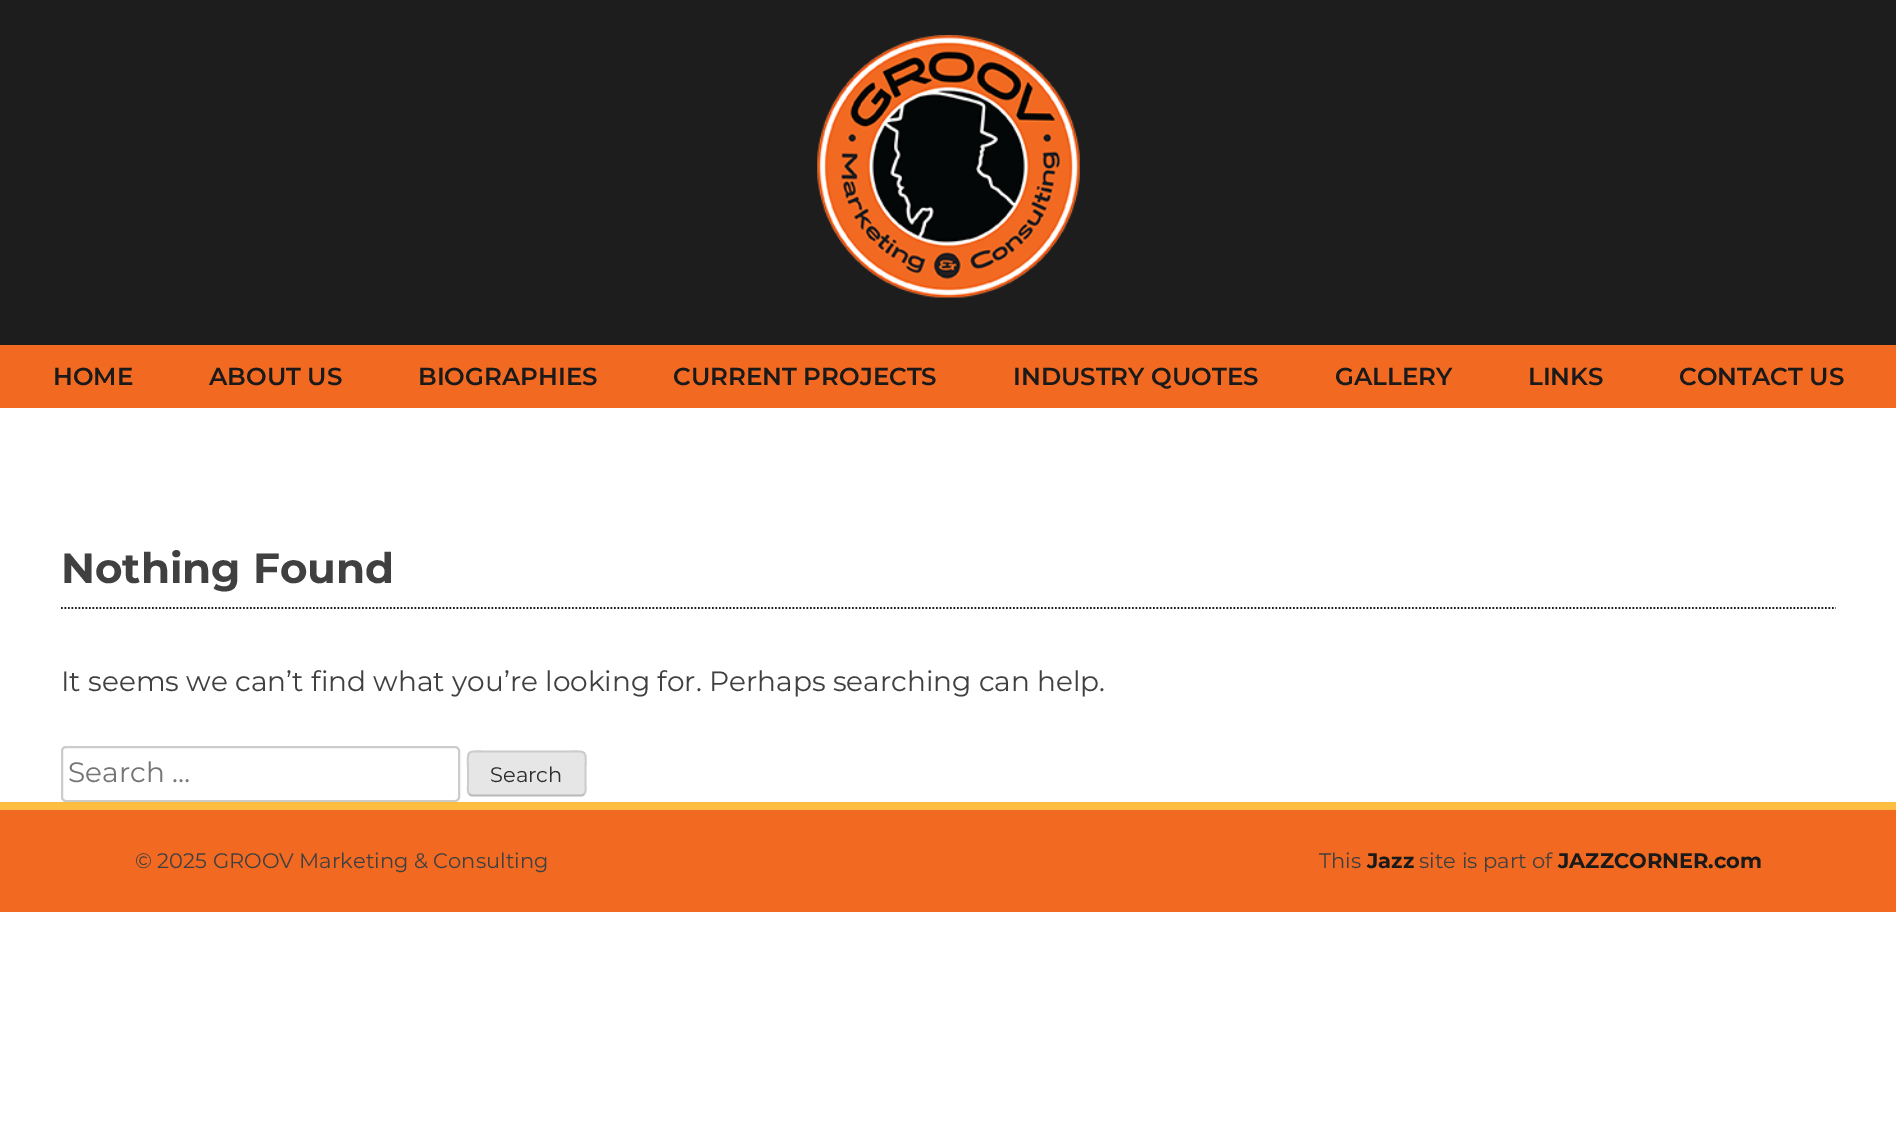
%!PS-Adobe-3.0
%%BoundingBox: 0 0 1896 1133
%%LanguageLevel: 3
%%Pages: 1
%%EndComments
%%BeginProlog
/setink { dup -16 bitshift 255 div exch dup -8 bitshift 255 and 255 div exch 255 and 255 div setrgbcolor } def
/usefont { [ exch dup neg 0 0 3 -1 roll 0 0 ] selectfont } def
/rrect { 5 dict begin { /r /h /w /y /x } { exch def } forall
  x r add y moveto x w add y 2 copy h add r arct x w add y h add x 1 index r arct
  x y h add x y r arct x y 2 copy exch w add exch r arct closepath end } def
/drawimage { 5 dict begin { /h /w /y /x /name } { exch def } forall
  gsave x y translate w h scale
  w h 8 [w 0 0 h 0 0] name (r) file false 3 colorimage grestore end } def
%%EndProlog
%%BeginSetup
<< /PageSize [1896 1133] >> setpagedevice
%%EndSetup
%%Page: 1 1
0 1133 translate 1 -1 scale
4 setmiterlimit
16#FFFFFF setink
0 0 1896 1133 rectfill
16#1D1D1D setink
0 0 1896 345 rectfill
(img1.raw) 817 35 263 263 drawimage
16#F26922 setink
0 345 1896 63 rectfill
/Montserrat-SemiBold 24.5 usefont
16#1A1A1A setink
[
    [(HOME) 53 385]
    [(ABOUT US) 209 385]
    [(BIOGRAPHIES) 418 385]
    [(CURRENT PROJECTS) 673 385]
    [(INDUSTRY QUOTES) 1013 385]
    [(GALLERY) 1335 385]
    [(LINKS) 1528 385]
    [(CONTACT US) 1679 385]
] { aload pop moveto show } forall
1.8 setlinewidth
[1.75 1.75] 0 setdash
61 608 moveto 1836 608 lineto stroke
/Montserrat-Bold 42 usefont
16#404040 setink
61 583 moveto (Nothing Found) show
/Montserrat-Regular 28 usefont
61 691 moveto (It seems we can’t find what you’re looking for. Perhaps searching can help.) show
16#CCCCCC setink
2 setlinewidth
[] 0 setdash
62 747 397 54 4 rrect stroke
16#757575 setink
68 782 moveto (Search …) show
16#E6E6E6 setink
467 751 119 45 5 rrect fill
16#BBBBBB setink
1.8 setlinewidth
584 794 moveto 583.5 795 582 795.5 581 795.5 curveto 472.5 795.5 lineto 471.5 795.5 470 795 469.5 794 curveto stroke
16#CCCCCC setink
469.5 794 moveto 467 792 468 787.5 468 785 curveto 468 773.5 lineto 468 748 464 751.5 490.5 751.5 curveto 563 751.5 lineto 589.5 751.5 585.5 748 585.5 773.5 curveto 585.5 785 lineto 585.5 787.5 586.5 792 584 794 curveto stroke
/Montserrat-Regular 21 usefont
16#2E2E2E setink
490 782 moveto (Search) show
16#F26922 setink
0 810 1896 102 rectfill
16#FDBD40 setink
0 802 1896 8 rectfill
16#404040 setink
135 868 moveto (© 2025 GROOV Marketing & Consulting) show
1319 868 moveto (This) show
/Montserrat-Bold 21 usefont
16#1A1A1A setink
1367 868 moveto (Jazz) show
/Montserrat-Regular 21 usefont
16#404040 setink
1419 868 moveto (site is part of) show
/Montserrat-Bold 21 usefont
16#1A1A1A setink
1558 868 moveto (JAZZCORNER.com) show
showpage
%%EOF
